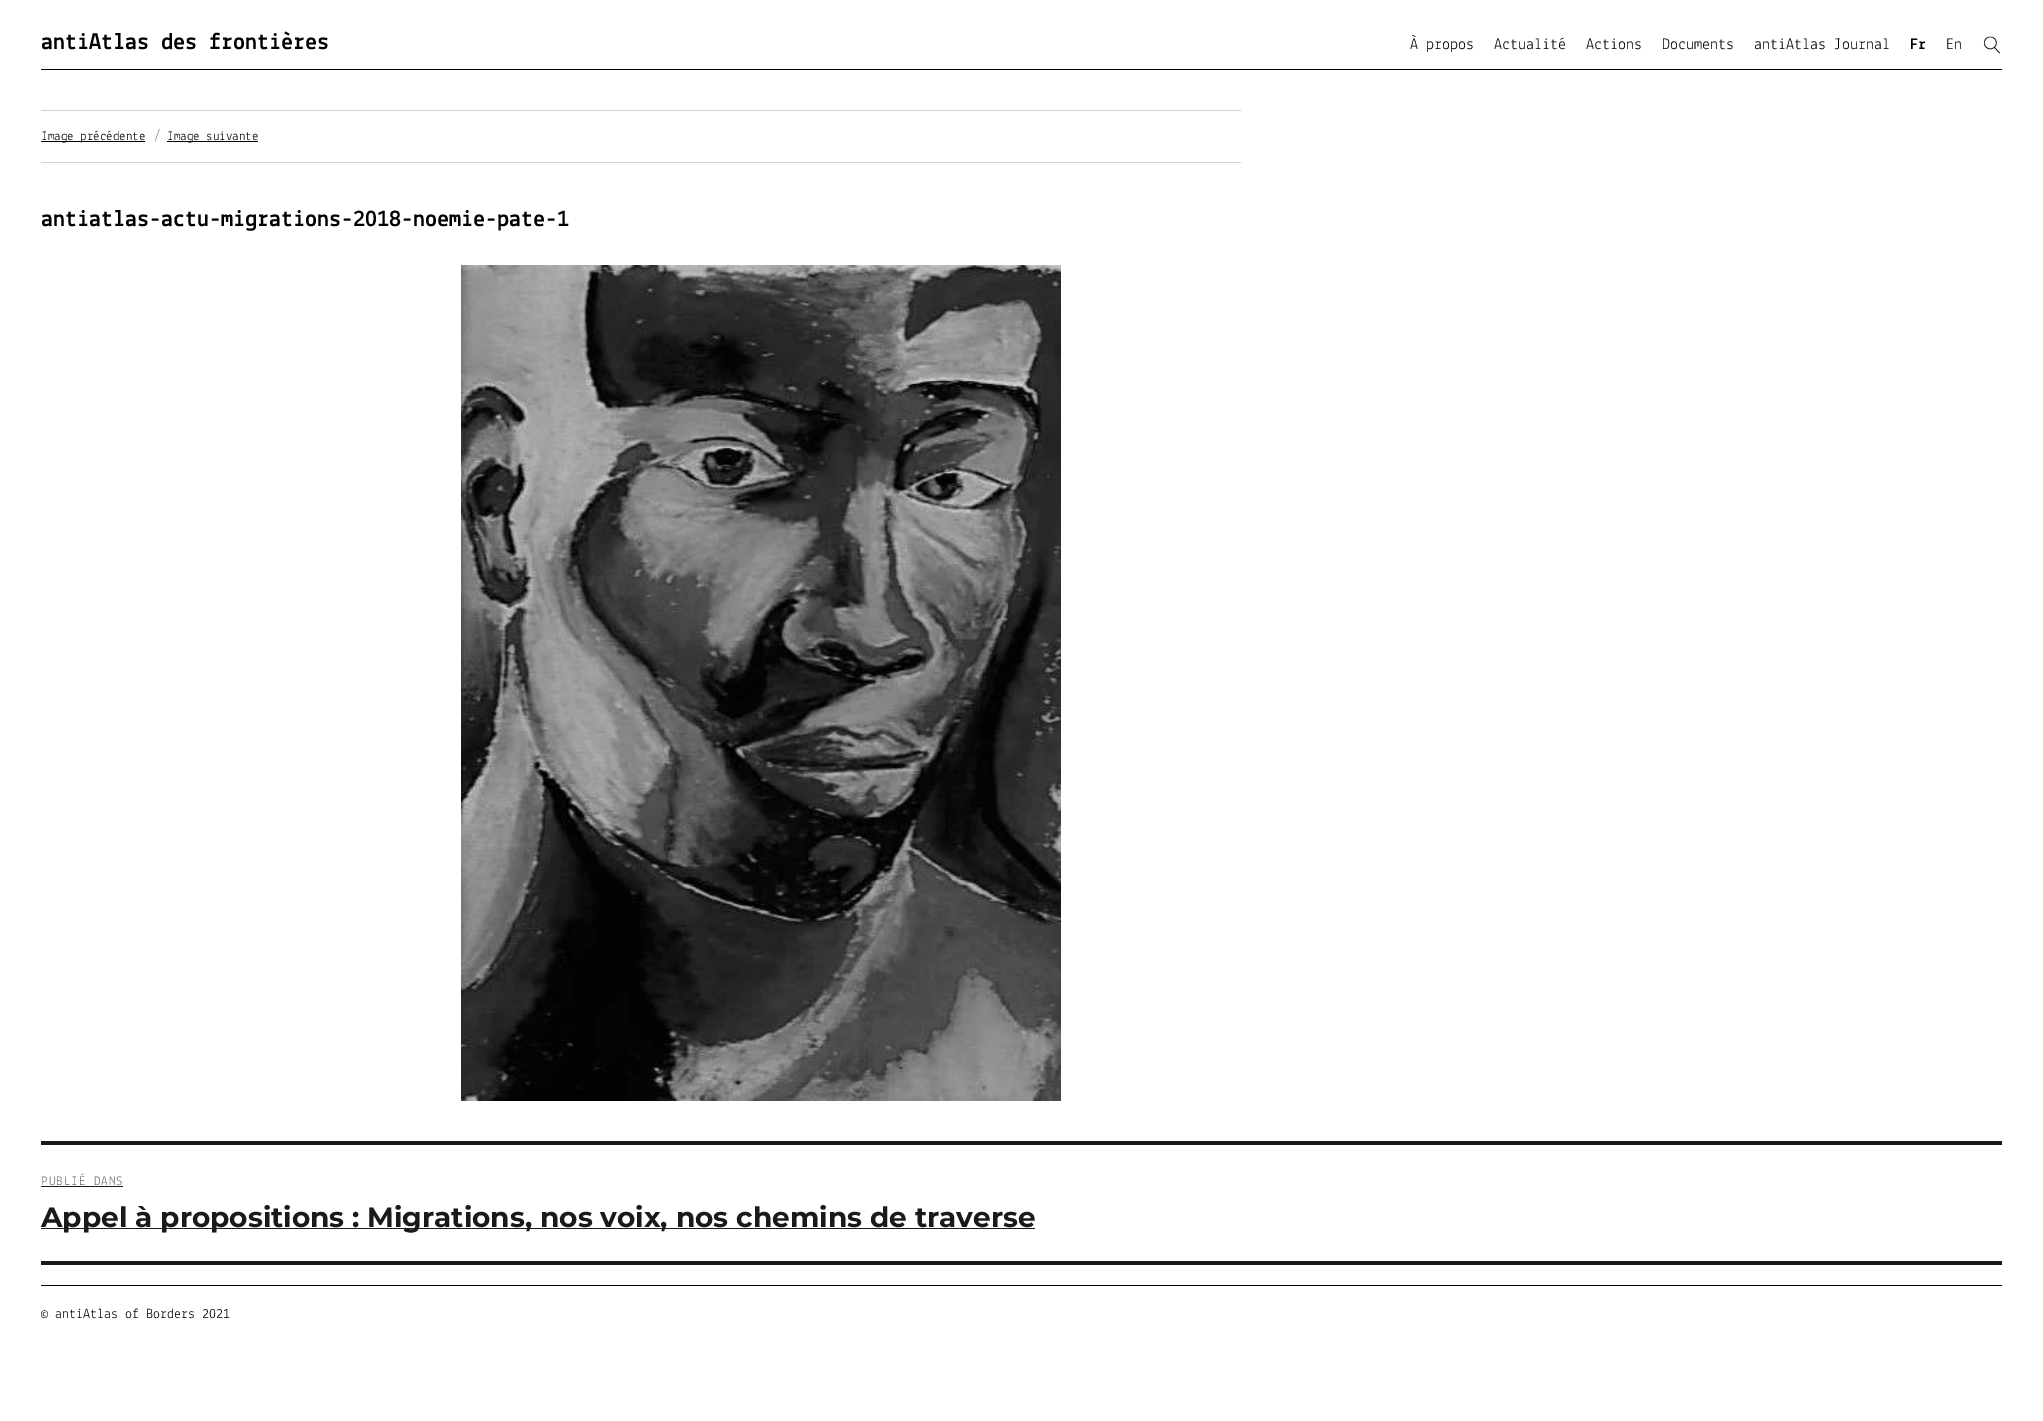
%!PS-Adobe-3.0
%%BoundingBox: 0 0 2043 1421
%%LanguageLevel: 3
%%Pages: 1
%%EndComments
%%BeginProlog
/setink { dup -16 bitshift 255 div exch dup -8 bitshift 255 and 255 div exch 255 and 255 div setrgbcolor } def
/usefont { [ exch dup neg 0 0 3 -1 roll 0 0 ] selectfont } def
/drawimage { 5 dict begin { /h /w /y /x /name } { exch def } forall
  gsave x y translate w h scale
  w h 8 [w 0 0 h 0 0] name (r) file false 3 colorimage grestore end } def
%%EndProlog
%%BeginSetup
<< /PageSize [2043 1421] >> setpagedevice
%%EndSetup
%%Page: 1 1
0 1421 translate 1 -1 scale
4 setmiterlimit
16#FFFFFF setink
0 0 2043 1421 rectfill
16#000000 setink
41 69 1961 1 rectfill
/Lekton-Bold 24 usefont
41 49 moveto (antiAtlas des frontières) show
/Lekton-Regular 16 usefont
[
    [(À propos) 1410 49]
    [(Actualité) 1494 49]
    [(Actions) 1586 49]
    [(Documents) 1662 49]
    [(antiAtlas Journal) 1754 49]
] { aload pop moveto show } forall
/Lekton-Bold 16 usefont
1910 49 moveto (Fr) show
/Lekton-Regular 16 usefont
1946 49 moveto (En) show
(img1.raw) 1983 36 17 18 drawimage
[
    [41 110 1200 1 16#D1D1D1]
    [41 162 1200 1 16#D1D1D1]
    [41 141 104 1 16#000000]
] { aload pop setink rectfill } forall
/Lekton-Regular 13 usefont
41 140 moveto (Image précédente) show
/Montserrat-Regular 13 usefont
16#959595 setink
155 140 moveto (/) show
16#000000 setink
167 141 91 1 rectfill
/Lekton-Regular 13 usefont
167 140 moveto (Image suivante) show
/Lekton-Bold 24 usefont
41 226 moveto (antiatlas-actu-migrations-2018-noemie-pate-1) show
(img2.raw) 461 265 600 836 drawimage
16#1A1A1A setink
41 1141 1961 4 rectfill
41 1261 1961 4 rectfill
/Lekton-Regular 13 usefont
16#686868 setink
41 1185 moveto 1 0 (PUBLIÉ DANS) ashow
16#1A1A1A setink
41 1186 82 1 rectfill
41 1228 994 1 rectfill
/Montserrat-Bold 28 usefont
41 1227 moveto (Appel à propositions : Migrations, nos voix, nos chemins de traverse) show
16#000000 setink
41 1285 1961 1 rectfill
/Lekton-Regular 14 usefont
41 1318 moveto (© antiAtlas of Borders 2021) show
showpage
%%EOF
